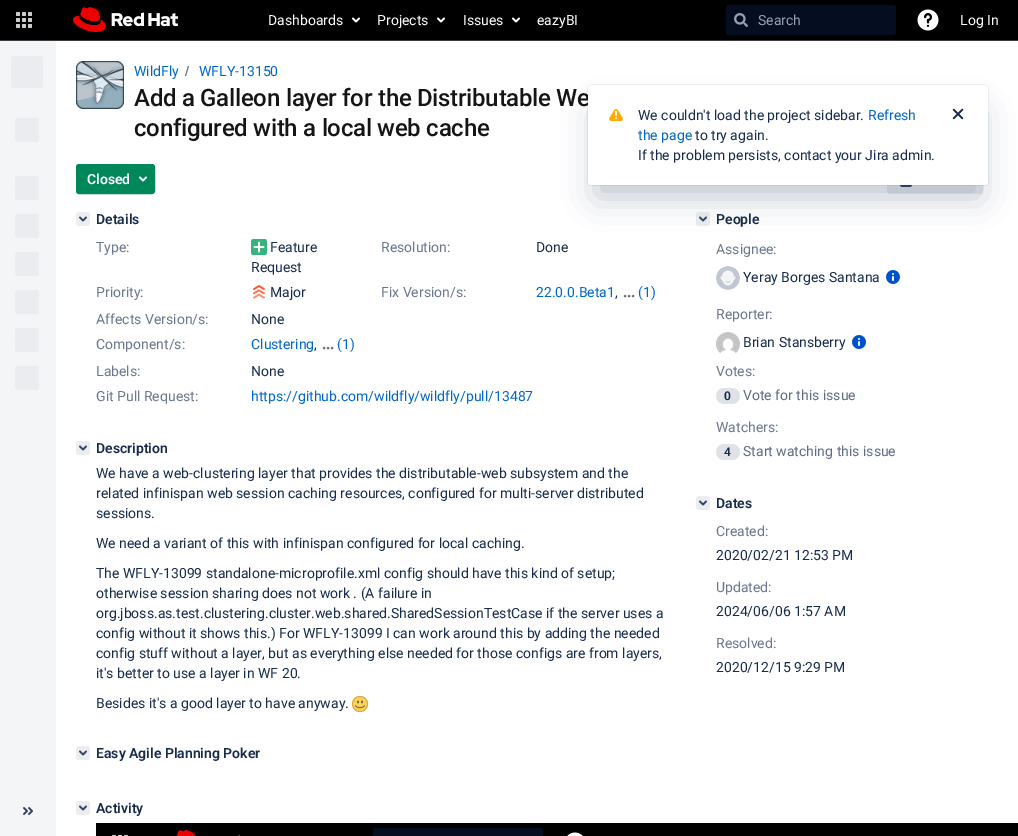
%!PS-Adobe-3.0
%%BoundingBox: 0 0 1018 836
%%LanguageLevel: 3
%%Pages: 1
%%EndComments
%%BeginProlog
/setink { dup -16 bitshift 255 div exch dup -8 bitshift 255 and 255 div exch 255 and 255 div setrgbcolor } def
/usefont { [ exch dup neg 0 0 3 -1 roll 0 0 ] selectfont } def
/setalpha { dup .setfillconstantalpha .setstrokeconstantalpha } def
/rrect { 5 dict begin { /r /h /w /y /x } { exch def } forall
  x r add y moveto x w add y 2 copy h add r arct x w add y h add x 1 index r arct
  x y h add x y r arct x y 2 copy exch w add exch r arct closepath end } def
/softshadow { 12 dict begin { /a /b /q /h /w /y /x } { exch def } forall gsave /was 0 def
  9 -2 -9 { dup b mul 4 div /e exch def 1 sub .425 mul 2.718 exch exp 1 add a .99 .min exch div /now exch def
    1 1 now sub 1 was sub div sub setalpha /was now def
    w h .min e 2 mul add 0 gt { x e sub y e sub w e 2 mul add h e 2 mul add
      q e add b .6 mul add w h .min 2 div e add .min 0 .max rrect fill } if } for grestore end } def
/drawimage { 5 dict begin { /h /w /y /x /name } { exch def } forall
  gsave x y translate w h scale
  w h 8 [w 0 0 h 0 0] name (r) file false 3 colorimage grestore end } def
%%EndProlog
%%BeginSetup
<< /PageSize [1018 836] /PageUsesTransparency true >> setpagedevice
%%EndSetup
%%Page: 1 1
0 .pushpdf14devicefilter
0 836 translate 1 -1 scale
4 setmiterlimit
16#FFFFFF setink
0 0 1018 836 rectfill
16#000000 setink
0 0 1018 40 rectfill
16#3C3F42 setink
0 40 1018 1 rectfill
(img1.raw) 16 12 16 16 drawimage
(img2.raw) 73 7 105 25 drawimage
/Roboto-Regular 14 usefont
16#FFFFFF setink
268 25 moveto (Dashboards) show
(img3.raw) 352 17 8 6 drawimage
377 25 moveto (Projects) show
(img3.raw) 437 17 8 6 drawimage
463 25 moveto (Issues) show
(img3.raw) 512 17 8 6 drawimage
537 25 moveto (eazyBI) show
16#040E20 setink
726 5 170 30 3 rrect fill
(img4.raw) 734 13 14 14 drawimage
16#97A0AF setink
758 25 moveto (Search) show
(img5.raw) 917 9 22 22 drawimage
16#FFFFFF setink
960 25 moveto (Log In) show
16#F4F5F7 setink
0 41 56 795 rectfill
16#EBECF0 setink
11 56 32 32 3 rrect fill
15 118 24 24 3 rrect fill
15 176 24 24 3 rrect fill
15 214 24 24 3 rrect fill
15 252 24 24 3 rrect fill
15 290 24 24 3 rrect fill
15 328 24 24 3 rrect fill
15 366 24 24 3 rrect fill
(img6.raw) 23 807 10 8 drawimage
(img7.raw) 76 61 48 48 drawimage
16#0066CC setink
134 76 moveto (WildFly) show
16#707070 setink
186 76 moveto 189 66 lineto 188 66 lineto 185 76 lineto closepath fill
16#0066CC setink
199 76 moveto (WFLY-13150) show
/Roboto-Medium 24 usefont
16#151515 setink
134 106 moveto -0.25 0 (Add a Galleon layer for the Distributable We) ashow
134 136 moveto -0.25 0 (configured with a local web cache) ashow
16#00875A setink
76.5 164.5 78 29 2.5 rrect gsave fill grestore
stroke
/Roboto-SemiBold 14 usefont
16#FFFFFF setink
87 184 moveto (Closed) show
(img8.raw) 139 176 8 6 drawimage
16#EBEDF0 setink
887 164 96 30 3 rrect fill
(img9.raw) 900 185 12 2 drawimage
76 212 14 14 3 rrect fill
(img10.raw) 79 216 8 6 drawimage
16#172B4D setink
96 224 moveto (Details) show
/Roboto-Regular 14 usefont
16#6B778C setink
96 252 moveto (Type:) show
(img11.raw) 251 239 16 16 drawimage
16#172B4D setink
270 252 moveto (Feature) show
251 272 moveto (Request) show
16#6B778C setink
381 252 moveto (Resolution:) show
16#172B4D setink
536 252 moveto (Done) show
16#6B778C setink
96 297 moveto (Priority:) show
(img12.raw) 253 285 12 14 drawimage
16#172B4D setink
270 297 moveto (Major) show
16#6B778C setink
381 297 moveto (Fix Version/s:) show
16#0066CC setink
536 297 moveto (22.0.0.Beta1) show
16#172B4D setink
615 297 moveto (,) show
(img13.raw) 623 294 12 4 drawimage
16#0066CC setink
638 297 moveto (\(1\)) show
16#6B778C setink
96 324 moveto (Affects Version/s:) show
16#172B4D setink
251 324 moveto (None) show
16#6B778C setink
96 349 moveto (Component/s:) show
16#0066CC setink
251 349 moveto (Clustering) show
16#172B4D setink
314 349 moveto (,) show
(img13.raw) 322 346 12 4 drawimage
16#0066CC setink
337 349 moveto (\(1\)) show
16#6B778C setink
96 376 moveto (Labels:) show
16#172B4D setink
251 376 moveto (None) show
16#6B778C setink
96 401 moveto (Git Pull Request:) show
16#0066CC setink
251 401 moveto (https://github.com/wildfly/wildfly/pull/13487) show
16#EBEDF0 setink
76 441 14 14 3 rrect fill
(img10.raw) 79 445 8 6 drawimage
/Roboto-SemiBold 14 usefont
16#172B4D setink
96 453 moveto (Description) show
/Roboto-Regular 14 usefont
[
    [(We have a web-clustering layer that provides the distributable-web subsystem and the) 96 478]
    [(related infinispan web session caching resources, configured for multi-server distributed) 96 498]
    [(sessions.) 96 518]
    [(We need a variant of this with infinispan configured for local caching.) 96 548]
    [(The WFLY-13099 standalone-microprofile.xml config should have this kind of setup;) 96 578]
    [(otherwise session sharing does not work . \(A failure in) 96 598]
    [(org.jboss.as.test.clustering.cluster.web.shared.SharedSessionTestCase if the server uses a) 96 618]
    [(config without it shows this.\) For WFLY-13099 I can work around this by adding the needed) 96 638]
    [(config stuff without a layer, but as everything else needed for those configs are from layers,) 96 658]
    [(it's better to use a layer in WF 20.) 96 678]
    [(Besides it's a good layer to have anyway.) 96 708]
] { aload pop moveto show } forall
(img14.raw) 352 696 16 16 drawimage
16#EBEDF0 setink
76 746 14 14 3 rrect fill
(img10.raw) 79 750 8 6 drawimage
/Roboto-SemiBold 14 usefont
16#172B4D setink
96 758 moveto (Easy Agile Planning Poker) show
16#EBEDF0 setink
76 801 14 14 3 rrect fill
(img10.raw) 79 805 8 6 drawimage
16#172B4D setink
96 813 moveto (Activity) show
16#000000 setink
96 823 922 13 rectfill
(img15.raw) 112 835 16 1 drawimage
(img16.raw) 176 830 64 6 drawimage
16#040E20 setink
376 828 moveto 540 828 lineto 541.5 828 543 829.5 543 831 curveto 543 836 lineto 373 836 lineto 373 831 lineto 373 829.5 374.5 828 376 828 curveto closepath fill
(img17.raw) 567 832 16 4 drawimage
16#EBEDF0 setink
696 212 14 14 3 rrect fill
(img10.raw) 699 216 8 6 drawimage
16#172B4D setink
716 224 moveto (People) show
/Roboto-Regular 14 usefont
16#6B778C setink
716 254 moveto (Assignee:) show
(img18.raw) 716 266 24 24 drawimage
16#172B4D setink
743 282 moveto (Yeray Borges Santana) show
(img19.raw) 886 270 14 14 drawimage
16#6B778C setink
716 319 moveto (Reporter:) show
(img20.raw) 716 332 24 22 drawimage
16#172B4D setink
743 347 moveto (Brian Stansberry) show
(img19.raw) 852 335 14 14 drawimage
16#6B778C setink
716 376 moveto (Votes:) show
16#DFE2E6 setink
716 388 24 16 8 rrect fill
/Roboto-SemiBold 12 usefont
16#172B4D setink
724 400 moveto (0) show
/Roboto-Regular 14 usefont
16#5E6C84 setink
743 400 moveto (Vote for this issue) show
16#6B778C setink
716 432 moveto (Watchers:) show
16#DFE2E6 setink
716 444 24 16 8 rrect fill
/Roboto-SemiBold 12 usefont
16#172B4D setink
724 456 moveto (4) show
/Roboto-Regular 14 usefont
16#5E6C84 setink
743 456 moveto (Start watching this issue) show
16#EBEDF0 setink
696 496 14 14 3 rrect fill
(img10.raw) 699 500 8 6 drawimage
/Roboto-SemiBold 14 usefont
16#172B4D setink
716 508 moveto (Dates) show
/Roboto-Regular 14 usefont
16#6B778C setink
716 536 moveto (Created:) show
16#172B4D setink
716 560 moveto (2020/02/21 12:53 PM) show
16#6B778C setink
716 592 moveto (Updated:) show
16#172B4D setink
716 616 moveto (2024/06/06 1:57 AM) show
16#6B778C setink
716 648 moveto (Resolved:) show
16#172B4D setink
716 672 moveto (2020/12/15 9:29 PM) show
16#091E42 setink
588 85 400 100 3 0.5 0.25 softshadow
596 113 384 84 0 16 0.25 softshadow
16#FFFFFF setink
588 85 400 100 3 rrect fill
(img21.raw) 609 109 14 12 drawimage
16#172B4D setink
638 120 moveto (We couldn't load the project sidebar.) show
16#0066CC setink
868 120 moveto (Refresh) show
(img22.raw) 952 108 12 12 drawimage
638 140 moveto (the page) show
16#172B4D setink
695 140 moveto (to try again.) show
638 160 moveto (If the problem persists, contact your Jira admin.) show
.poppdf14devicefilter showpage
%%EOF
